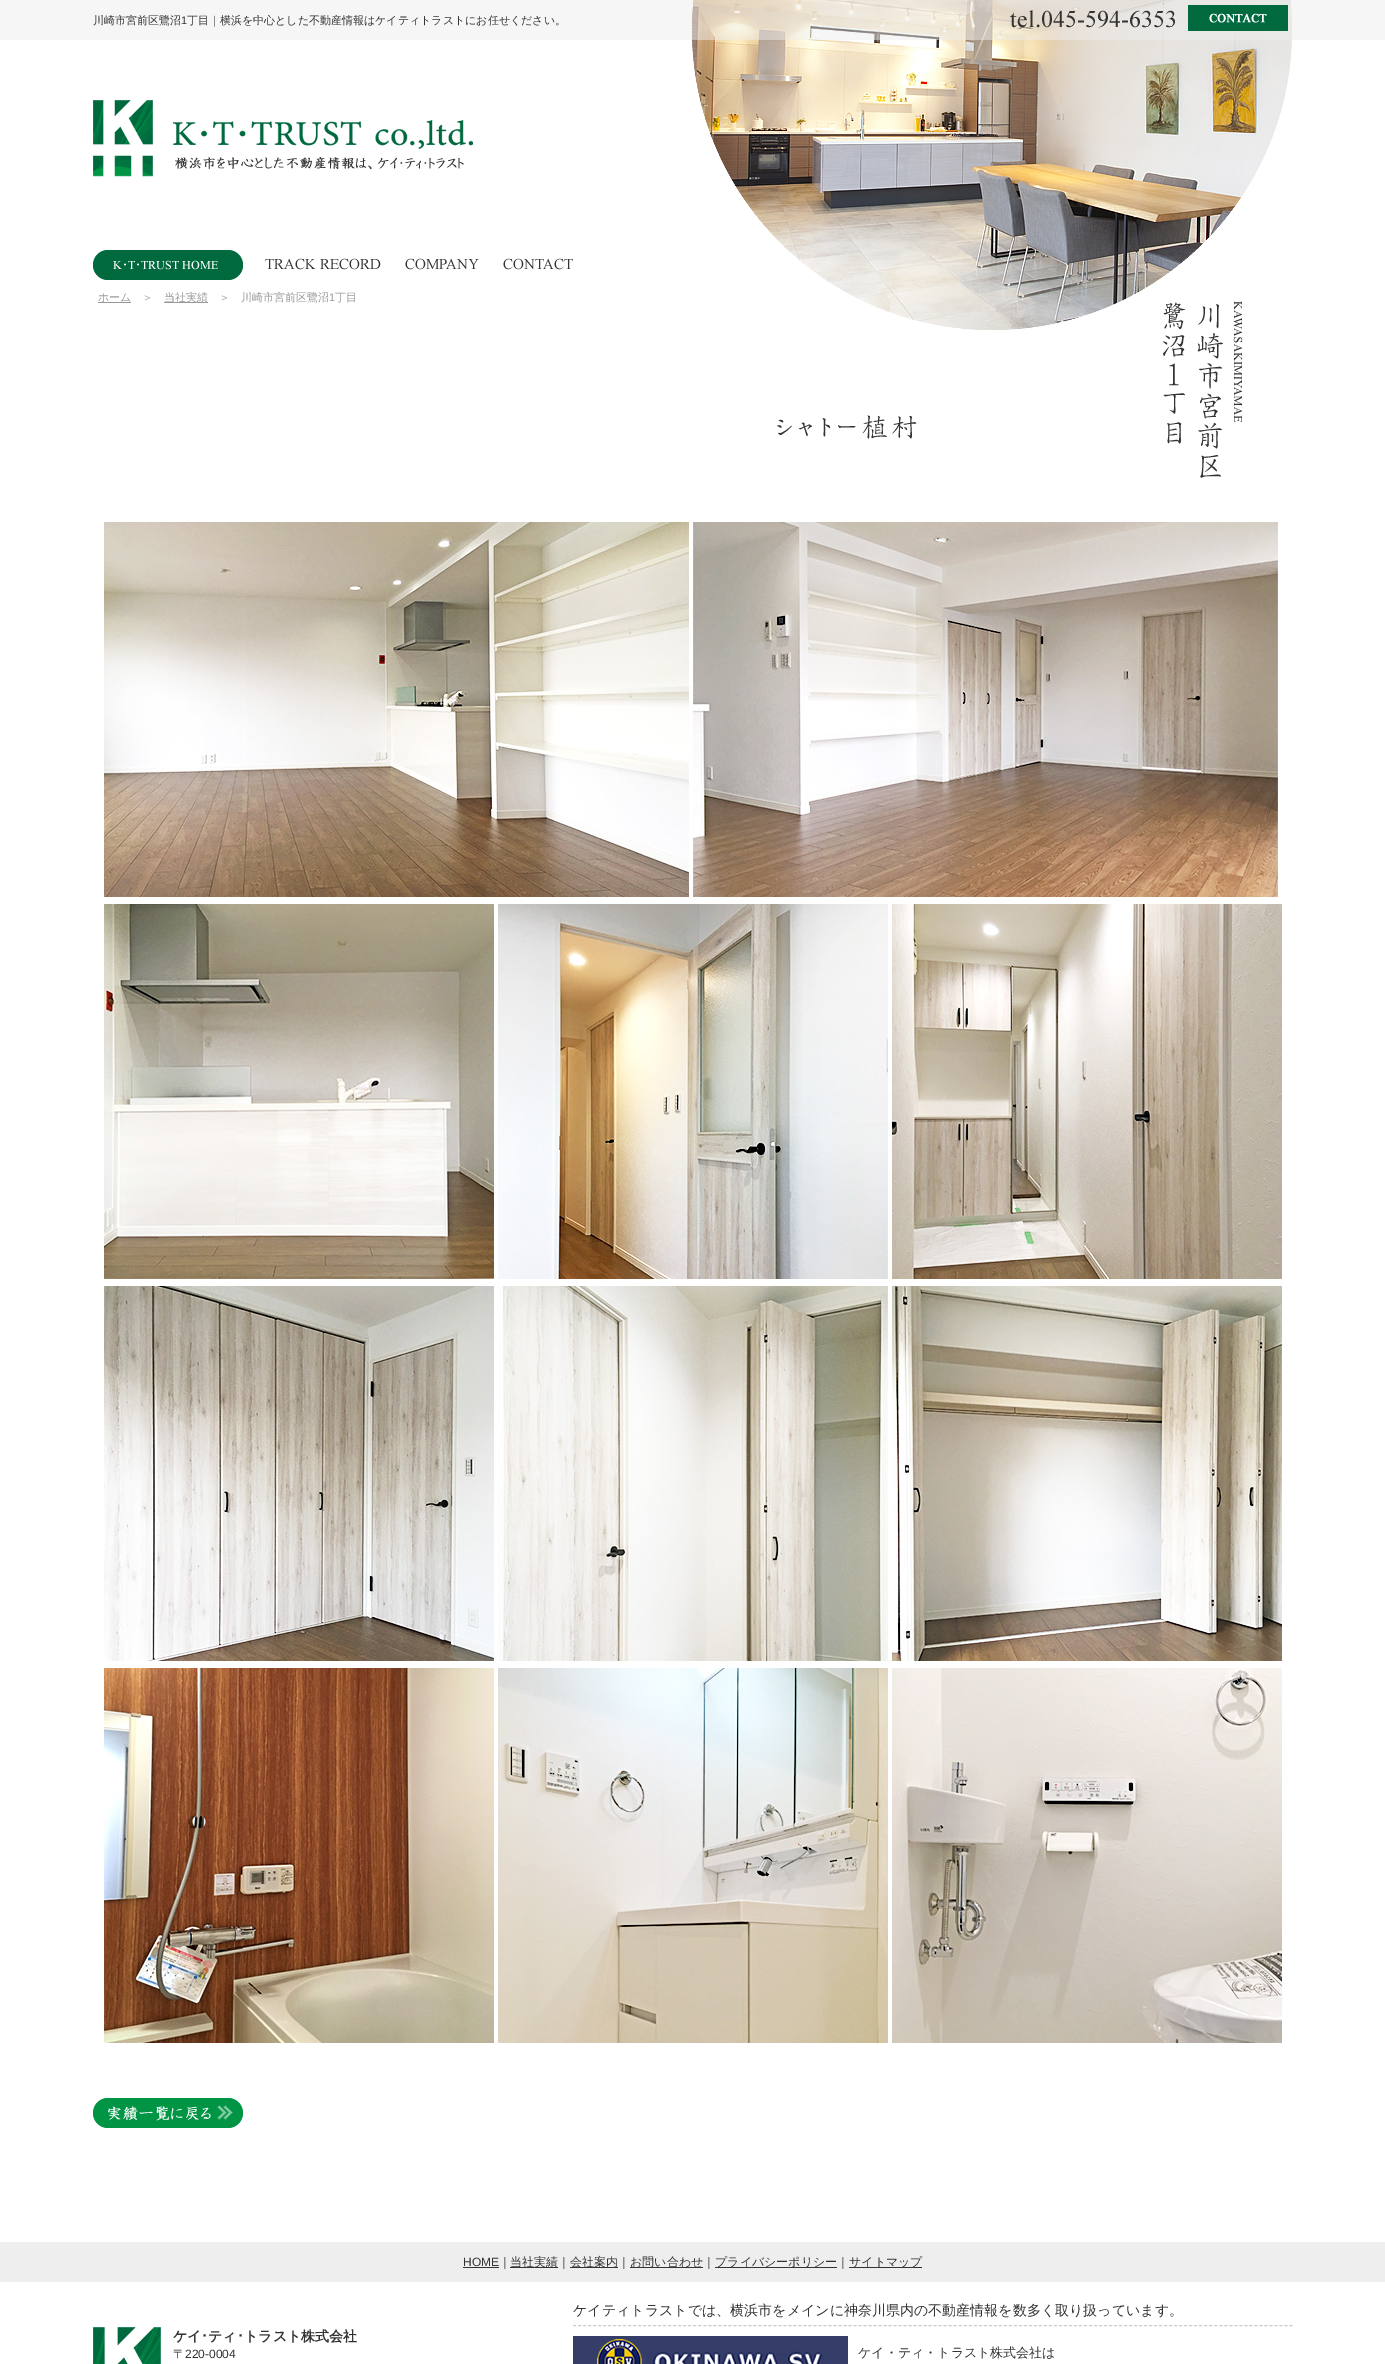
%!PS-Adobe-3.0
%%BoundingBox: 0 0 1385 2364
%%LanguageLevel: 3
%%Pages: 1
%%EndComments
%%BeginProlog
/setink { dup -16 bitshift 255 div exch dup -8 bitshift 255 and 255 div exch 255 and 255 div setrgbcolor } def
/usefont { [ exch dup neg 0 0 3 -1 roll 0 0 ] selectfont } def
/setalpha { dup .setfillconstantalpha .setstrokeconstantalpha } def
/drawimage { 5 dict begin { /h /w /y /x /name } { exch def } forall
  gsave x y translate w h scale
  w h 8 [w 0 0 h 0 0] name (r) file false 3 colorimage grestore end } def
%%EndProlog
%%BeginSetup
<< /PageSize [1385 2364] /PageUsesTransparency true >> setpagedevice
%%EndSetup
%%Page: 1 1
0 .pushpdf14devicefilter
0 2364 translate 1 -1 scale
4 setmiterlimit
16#FFFFFF setink
0 0 1385 2364 rectfill
(img1.raw) 692 0 600 330 drawimage
0.5 setalpha
16#EDEDED setink
0 0 1385 40 rectfill
/WenQuanYiZenHei-Medium 11 usefont
1 setalpha
16#333333 setink
93 24 moveto (川崎市宮前区鷺沼) show
/LiberationSans-Regular 11 usefont
181 24 moveto (1) show
/WenQuanYiZenHei-Medium 11 usefont
187 24 moveto (丁目｜横浜を中心とした不動産情報はケイティトラストにお任せください。) show
(img2.raw) 1010 10 165 18 drawimage
(img3.raw) 1188 5 100 26 drawimage
(img4.raw) 93 100 380 77 drawimage
(img5.raw) 93 250 150 30 drawimage
(img6.raw) 265 258 116 12 drawimage
(img7.raw) 405 258 74 12 drawimage
(img8.raw) 503 258 70 12 drawimage
16#999999 setink
98 302 33 1 rectfill
98 301 moveto (ホーム) show
142 301 moveto (＞) show
164 302 44 1 rectfill
164 301 moveto (当社実績) show
219 301 moveto (＞　川崎市宮前区鷺沼) show
/LiberationSans-Regular 11 usefont
329 301 moveto (1) show
/WenQuanYiZenHei-Medium 11 usefont
335 301 moveto (丁目) show
(img9.raw) 777 415 140 24 drawimage
(img10.raw) 1163 301 80 177 drawimage
(img11.raw) 104 522 585 375 drawimage
(img12.raw) 693 522 585 375 drawimage
(img13.raw) 104 904 390 375 drawimage
(img14.raw) 498 904 390 375 drawimage
(img15.raw) 892 904 390 375 drawimage
(img16.raw) 104 1286 390 375 drawimage
(img17.raw) 498 1286 390 375 drawimage
(img18.raw) 892 1286 390 375 drawimage
(img19.raw) 104 1668 390 375 drawimage
(img20.raw) 498 1668 390 375 drawimage
(img21.raw) 892 1668 390 375 drawimage
(img22.raw) 93 2098 150 30 drawimage
16#EEEEEE setink
0 2242 1385 40 rectfill
/LiberationSans-Regular 12 usefont
16#333333 setink
463 2266 moveto (HOME) show
463 2267 36 1 rectfill
/WenQuanYiZenHei-Medium 12 usefont
499 2266 moveto (｜) show
510 2267 48 1 rectfill
510 2266 moveto (当社実績｜) show
570 2267 48 1 rectfill
570 2266 moveto (会社案内｜) show
630 2267 73 1 rectfill
630 2266 moveto (お問い合わせ｜) show
715 2267 122 1 rectfill
715 2266 moveto (プライバシーポリシー｜) show
849 2267 73 1 rectfill
849 2266 moveto (サイトマップ) show
(img23.raw) 93 2327 68 37 drawimage
/WenQuanYiZenHei-Bold 14 usefont
173 2341 moveto (ケイ) show
/IPAPGothic-Bold 14 usefont
201 2341 moveto (･) show
/WenQuanYiZenHei-Bold 14 usefont
208 2341 moveto (ティ) show
/IPAPGothic-Bold 14 usefont
237 2341 moveto (･) show
/WenQuanYiZenHei-Bold 14 usefont
244 2341 moveto (トラスト株式会社) show
/WenQuanYiZenHei-Medium 12 usefont
173 2358 moveto (〒) show
/LiberationSans-Regular 12 usefont
185 2358 moveto (220-0004) show
16#CCCCCC setink
[3 2.01] 0 setdash
573 2325.5 moveto 1293 2325.5 lineto stroke
/WenQuanYiZenHei-Medium 14 usefont
16#333333 setink
573 2315 moveto (ケイティトラストでは、横浜市をメインに神奈川県内の不動産情報を数多く取り扱っています。) show
(img24.raw) 573 2336 275 28 drawimage
/WenQuanYiZenHei-Medium 13 usefont
858 2357 moveto (ケイ・ティ・トラスト株式会社は) show
.poppdf14devicefilter showpage
%%EOF
